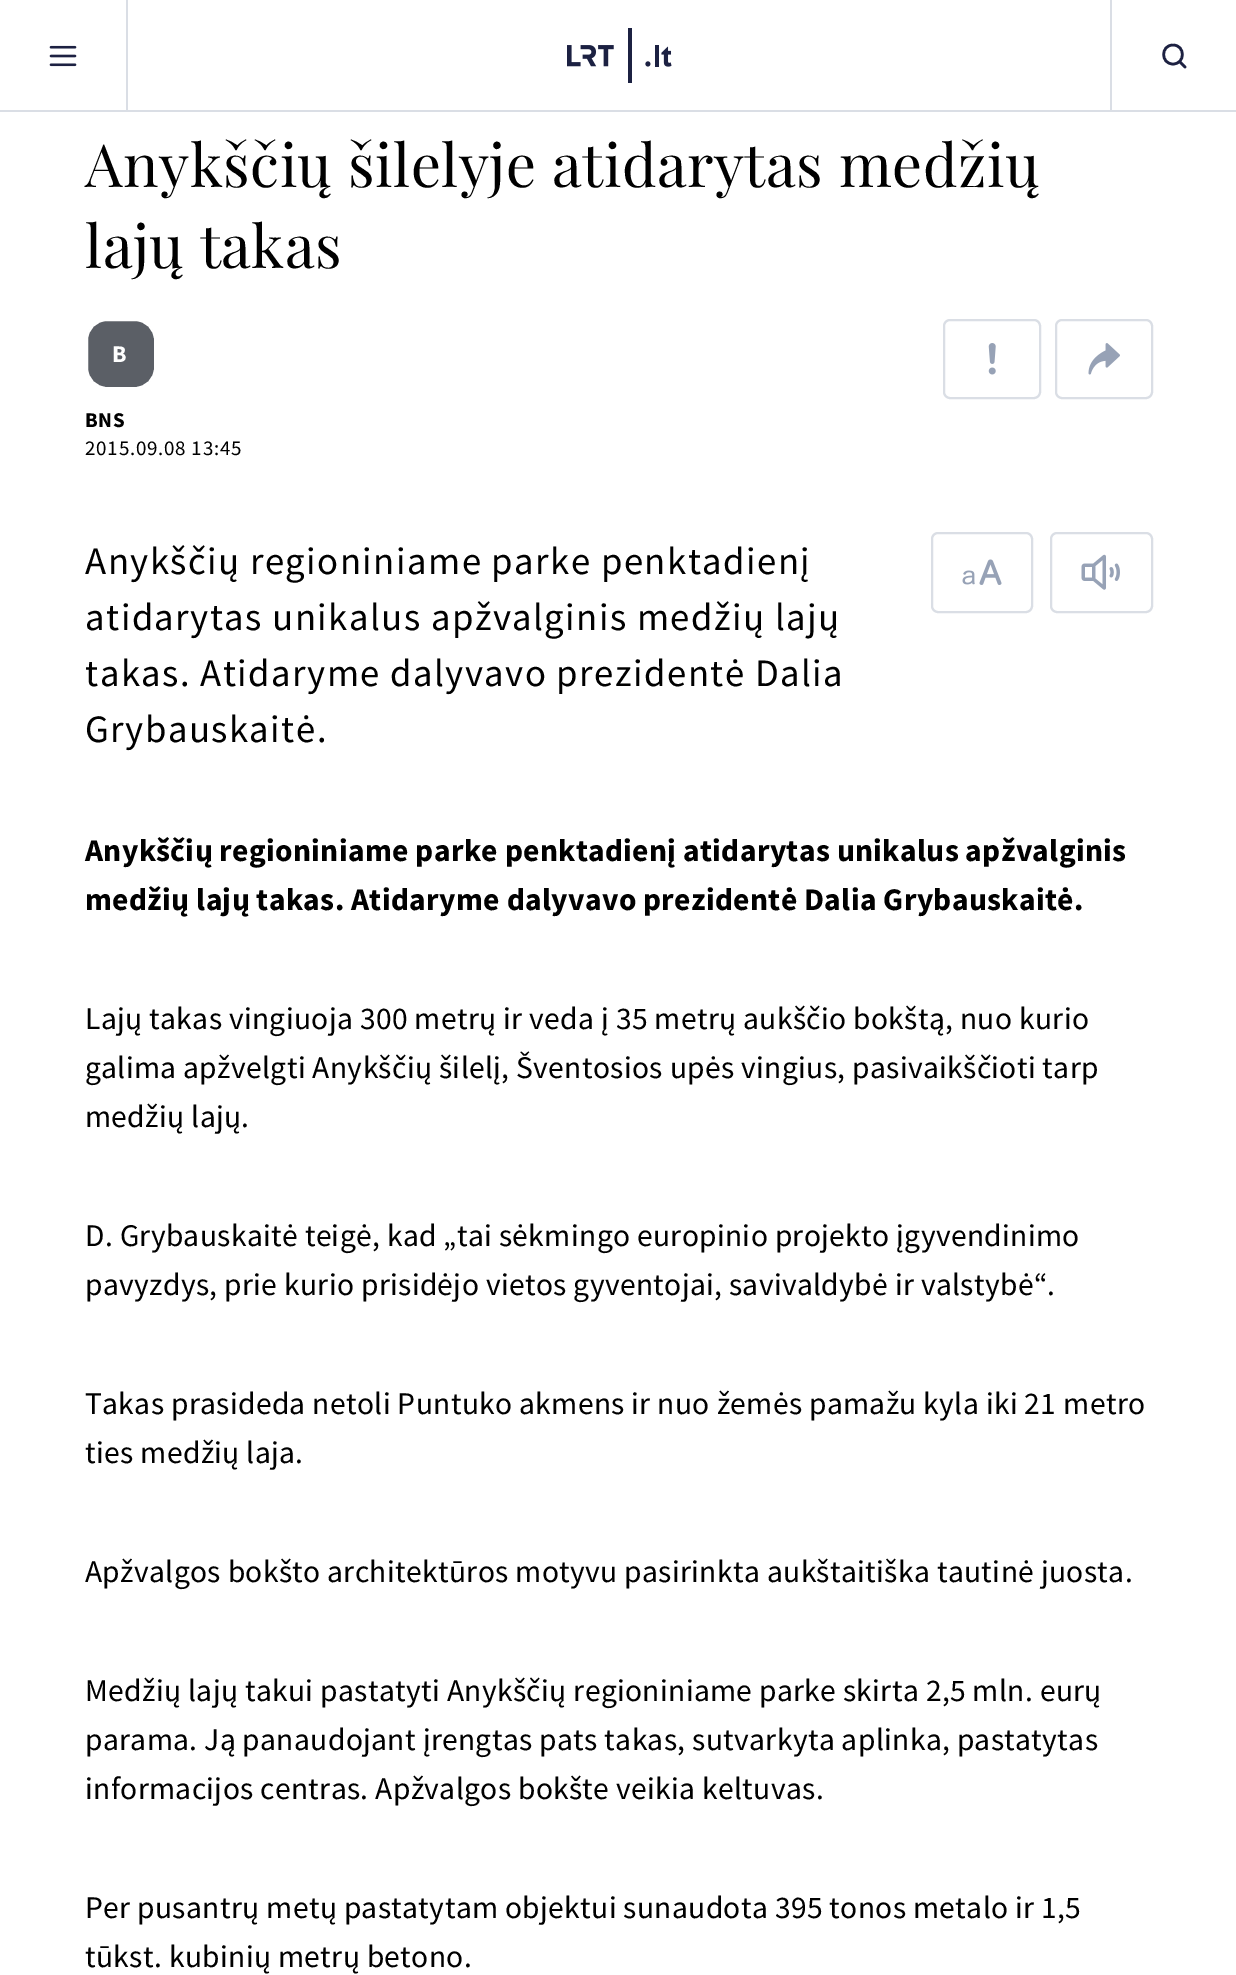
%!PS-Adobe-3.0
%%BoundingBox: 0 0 1236 1975
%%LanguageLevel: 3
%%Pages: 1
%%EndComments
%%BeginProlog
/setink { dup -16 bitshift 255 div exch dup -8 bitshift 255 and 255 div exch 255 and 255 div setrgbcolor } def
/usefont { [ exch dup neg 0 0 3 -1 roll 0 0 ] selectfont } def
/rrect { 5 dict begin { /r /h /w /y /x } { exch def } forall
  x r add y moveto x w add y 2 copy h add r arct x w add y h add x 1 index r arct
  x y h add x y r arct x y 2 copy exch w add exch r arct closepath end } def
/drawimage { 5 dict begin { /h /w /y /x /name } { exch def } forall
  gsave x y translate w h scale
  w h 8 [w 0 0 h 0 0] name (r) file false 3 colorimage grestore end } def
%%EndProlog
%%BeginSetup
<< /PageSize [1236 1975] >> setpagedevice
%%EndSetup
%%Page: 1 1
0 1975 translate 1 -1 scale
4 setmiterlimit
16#FFFFFF setink
0 0 1236 1975 rectfill
16#DADEE5 setink
0 110 1236 2 rectfill
126 0 2 110 rectfill
(img1.raw) 49 45 28 22 drawimage
(img2.raw) 567 28 105 55 drawimage
1110 0 2 110 rectfill
16#1D2142 setink
2.6 setlinewidth
1 setlinecap
1 setlinejoin
1173 64 moveto 1185.5 64 1185.5 45 1173 45 curveto 1160.5 45 1160.5 64 1173 64 curveto closepath 1179.5 61.5 moveto 1185 67 lineto stroke
/PlayfairDisplay-Regular 59.5 usefont
16#000000 setink
85 187 moveto 0.55 0 (Anykščių šilelyje atidarytas medžių) ashow
85 268 moveto 0.55 0 (lajų takas) ashow
16#5B5F66 setink
87 320 68 68 20 rrect gsave fill grestore
16#FFFFFF setink
2 setlinewidth
0 setlinecap
0 setlinejoin
stroke
/SourceSansPro-Bold 24 usefont
112 362 moveto 1 0 (B) ashow
/SourceSansPro-Bold 21 usefont
16#000000 setink
85 427 moveto 0.75 0 (BNS) ashow
/SourceSansPro-Regular 21 usefont
85 455 moveto 0.75 0 (2015.09.08 13:45) ashow
16#DADEE5 setink
944 320 96 78 6 rrect stroke
(img3.raw) 988 343 8 32 drawimage
1056 320 96 78 6 rrect stroke
(img4.raw) 1088 343 32 32 drawimage
/SourceSansPro-Regular 38.75 usefont
16#000000 setink
85 574 moveto 1.45 0 (Anykščių regioniniame parke penktadienį) ashow
16#DADEE5 setink
932 533 100 79 6 rrect stroke
(img5.raw) 962 559 40 26 drawimage
1051 533 101 79 6 rrect stroke
(img6.raw) 1081 554 39 36 drawimage
16#000000 setink
85 630 moveto 1.45 0 (atidarytas unikalus apžvalginis medžių lajų) ashow
85 686 moveto 1.45 0 (takas. Atidaryme dalyvavo prezidentė Dalia) ashow
85 742 moveto 1.45 0 (Grybauskaitė.) ashow
/SourceSansPro-Bold 31.5 usefont
85 861 moveto 0.35 0 (Anykščių regioniniame parke penktadienį atidarytas unikalus apžvalginis) ashow
85 910 moveto 0.35 0 (medžių lajų takas. Atidaryme dalyvavo prezidentė Dalia Grybauskaitė.) ashow
/SourceSansPro-Regular 31.5 usefont
85 1029 moveto 0.35 0 (Lajų takas vingiuoja 300 metrų ir veda į 35 metrų aukščio bokštą, nuo kurio) ashow
85 1078 moveto 0.35 0 (galima apžvelgti Anykščių šilelį, Šventosios upės vingius, pasivaikščioti tarp) ashow
85 1127 moveto 0.35 0 (medžių lajų.) ashow
85 1246 moveto 0.35 0 (D. Grybauskaitė teigė, kad „tai sėkmingo europinio projekto įgyvendinimo) ashow
85 1295 moveto 0.35 0 (pavyzdys, prie kurio prisidėjo vietos gyventojai, savivaldybė ir valstybė“.) ashow
85 1414 moveto 0.35 0 (Takas prasideda netoli Puntuko akmens ir nuo žemės pamažu kyla iki 21 metro) ashow
85 1463 moveto 0.35 0 (ties medžių laja.) ashow
85 1582 moveto 0.35 0 (Apžvalgos bokšto architektūros motyvu pasirinkta aukštaitiška tautinė juosta.) ashow
85 1701 moveto 0.35 0 (Medžių lajų takui pastatyti Anykščių regioniniame parke skirta 2,5 mln. eurų) ashow
85 1750 moveto 0.35 0 (parama. Ją panaudojant įrengtas pats takas, sutvarkyta aplinka, pastatytas) ashow
85 1799 moveto 0.35 0 (informacijos centras. Apžvalgos bokšte veikia keltuvas.) ashow
85 1918 moveto 0.35 0 (Per pusantrų metų pastatytam objektui sunaudota 395 tonos metalo ir 1,5) ashow
85 1967 moveto 0.35 0 (tūkst. kubinių metrų betono.) ashow
showpage
%%EOF
